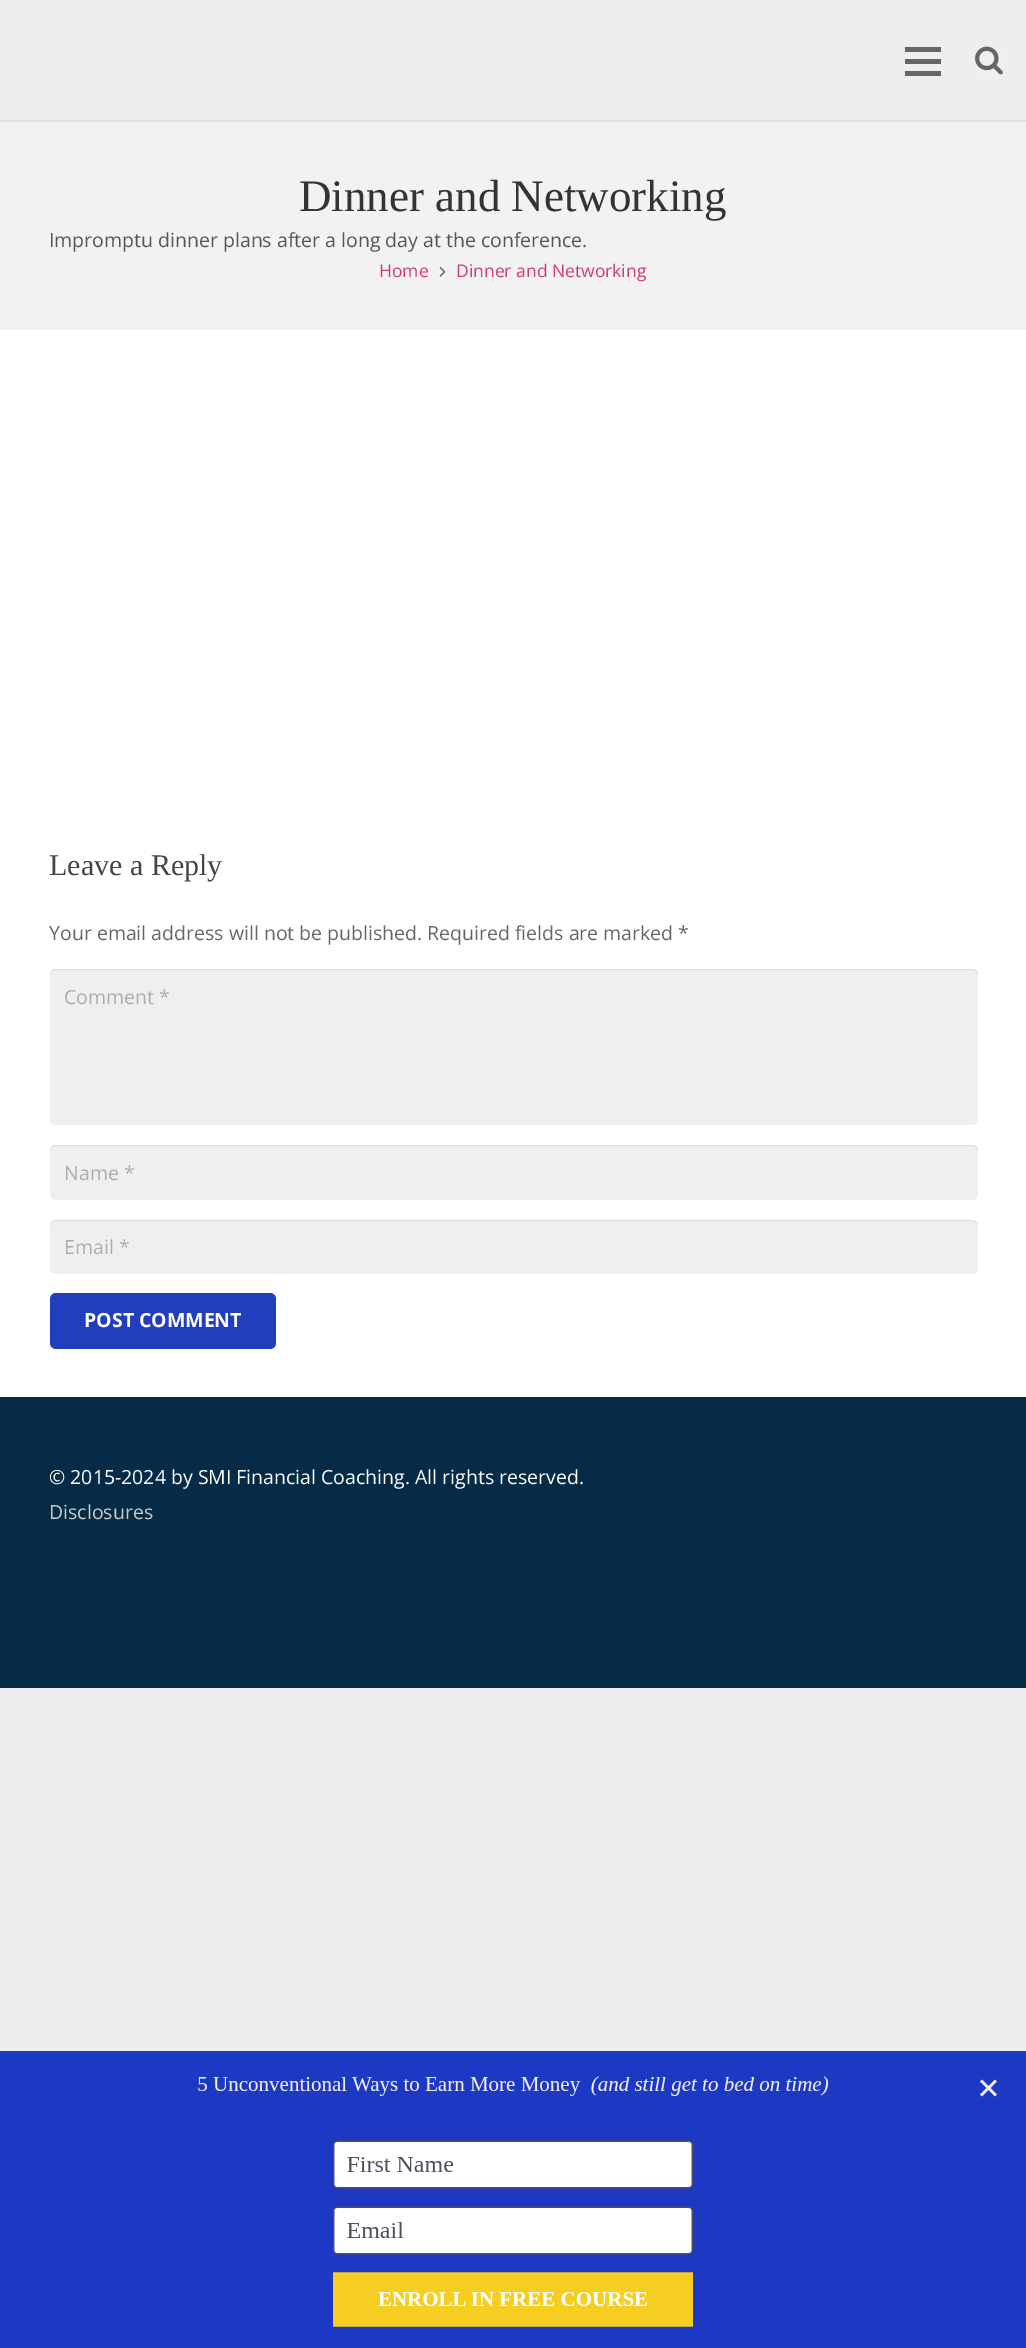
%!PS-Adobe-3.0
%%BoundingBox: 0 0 1026 2348
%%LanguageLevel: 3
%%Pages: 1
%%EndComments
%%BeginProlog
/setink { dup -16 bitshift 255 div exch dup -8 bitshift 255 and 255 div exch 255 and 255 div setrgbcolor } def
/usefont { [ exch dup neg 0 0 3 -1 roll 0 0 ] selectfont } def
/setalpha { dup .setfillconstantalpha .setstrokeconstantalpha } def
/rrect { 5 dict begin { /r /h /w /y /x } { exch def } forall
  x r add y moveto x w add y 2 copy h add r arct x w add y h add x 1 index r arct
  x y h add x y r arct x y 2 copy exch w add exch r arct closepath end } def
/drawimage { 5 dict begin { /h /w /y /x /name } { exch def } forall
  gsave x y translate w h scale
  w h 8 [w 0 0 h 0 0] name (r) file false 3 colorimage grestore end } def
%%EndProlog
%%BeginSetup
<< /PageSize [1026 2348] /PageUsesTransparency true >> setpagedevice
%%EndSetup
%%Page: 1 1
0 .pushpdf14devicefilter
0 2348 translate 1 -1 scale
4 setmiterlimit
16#EEEEEE setink
0 0 1026 2348 rectfill
[
    [0 330 1026 1067 16#FFFFFF]
    [0 120 1026 2 16#DFDFDF]
    [905 59 36 5 16#666666]
    [905 47 36 5 16#666666]
    [905 71 36 5 16#666666]
] { aload pop setink rectfill } forall
(img1.raw) 975 46 28 29 drawimage
16#F2F2F2 setink
0 122 1026 208 rectfill
/LiberationSerif-Regular 45 usefont
16#333333 setink
299 211 moveto (Dinner and Networking) show
/OpenSans-Regular 19.5 usefont
16#555555 setink
49 247 moveto (Impromptu dinner plans after a long day at the conference.) show
/OpenSans-Regular 17.5 usefont
16#D13A7A setink
379 277 moveto (Home) show
(img2.raw) 439 267 7 10 drawimage
456 277 moveto (Dinner and Networking) show
/LiberationSerif-Regular 30 usefont
16#444444 setink
49 875 moveto (Leave a Reply) show
/OpenSans-Regular 19.5 usefont
16#666666 setink
49 940 moveto (Your email address will not be published. Required fields are marked *) show
16#EFEFF0 setink
50 969 928 156 6 rrect fill
0.08 setalpha
16#000000 setink
55 970 moveto 972 970 lineto 975 970 978 973 978 976 curveto 978 975 lineto 978 972 975 969 972 969 curveto 56 969 lineto 53 969 50 972 50 975 curveto 50 976 lineto 50 973 52 970 55 970 curveto closepath fill
1 setalpha
16#ABABAB setink
64 1004 moveto (Comment *) show
16#EFEFF0 setink
50 1145 928 55 6 rrect fill
0.08 setalpha
16#000000 setink
55 1146 moveto 972 1146 lineto 975 1146 978 1149 978 1152 curveto 978 1151 lineto 978 1148 975 1145 972 1145 curveto 56 1145 lineto 53 1145 50 1148 50 1151 curveto 50 1152 lineto 50 1149 52 1146 55 1146 curveto closepath fill
1 setalpha
16#ABABAB setink
64 1180 moveto (Name *) show
16#EFEFF0 setink
50 1220 928 54 6 rrect fill
0.08 setalpha
16#000000 setink
55 1221 moveto 972 1221 lineto 975 1221 978 1224 978 1227 curveto 978 1226 lineto 978 1223 975 1220 972 1220 curveto 56 1220 lineto 53 1220 50 1223 50 1226 curveto 50 1227 lineto 50 1224 52 1221 55 1221 curveto closepath fill
1 setalpha
16#ABABAB setink
64 1254 moveto (Email *) show
16#213EBD setink
50 1293 226 56 6 rrect fill
/OpenSans-Bold 19.5 usefont
16#FFFFFF setink
84 1327 moveto (POST COMMENT) show
16#052B46 setink
0 1397 1026 291 rectfill
/OpenSans-Regular 19.5 usefont
16#FFFFFF setink
49 1484 moveto (© 2015-2024 by SMI Financial Coaching. All rights reserved.) show
16#CCCCCC setink
49 1519 moveto (Disclosures) show
(img3.raw) 0 2051 1026 297 drawimage
.poppdf14devicefilter showpage
%%EOF
